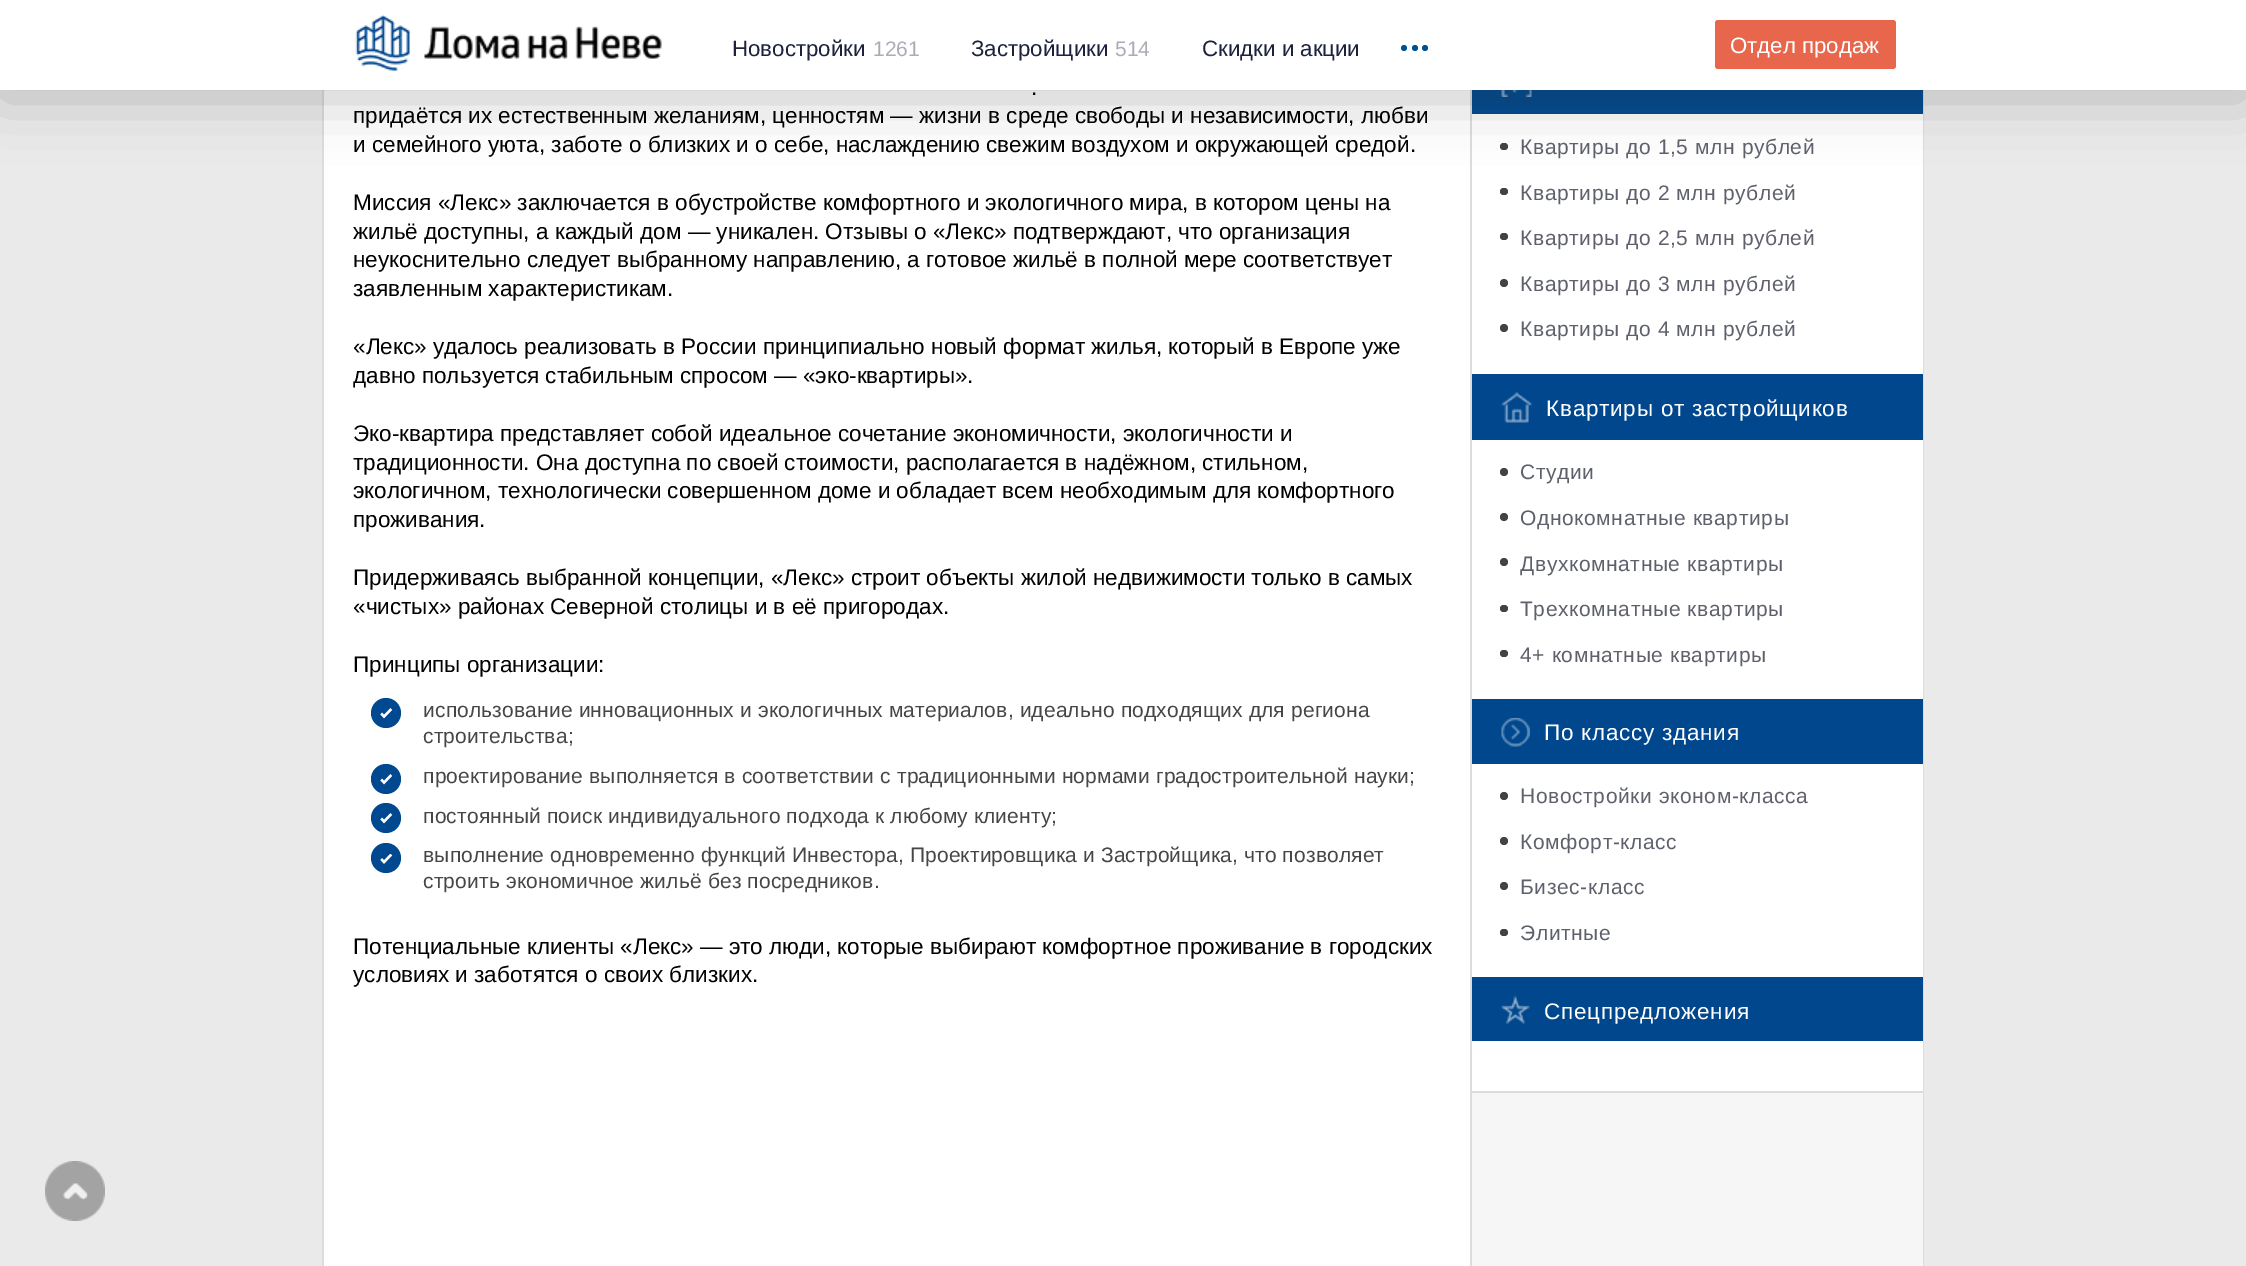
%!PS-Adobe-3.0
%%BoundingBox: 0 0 2246 1266
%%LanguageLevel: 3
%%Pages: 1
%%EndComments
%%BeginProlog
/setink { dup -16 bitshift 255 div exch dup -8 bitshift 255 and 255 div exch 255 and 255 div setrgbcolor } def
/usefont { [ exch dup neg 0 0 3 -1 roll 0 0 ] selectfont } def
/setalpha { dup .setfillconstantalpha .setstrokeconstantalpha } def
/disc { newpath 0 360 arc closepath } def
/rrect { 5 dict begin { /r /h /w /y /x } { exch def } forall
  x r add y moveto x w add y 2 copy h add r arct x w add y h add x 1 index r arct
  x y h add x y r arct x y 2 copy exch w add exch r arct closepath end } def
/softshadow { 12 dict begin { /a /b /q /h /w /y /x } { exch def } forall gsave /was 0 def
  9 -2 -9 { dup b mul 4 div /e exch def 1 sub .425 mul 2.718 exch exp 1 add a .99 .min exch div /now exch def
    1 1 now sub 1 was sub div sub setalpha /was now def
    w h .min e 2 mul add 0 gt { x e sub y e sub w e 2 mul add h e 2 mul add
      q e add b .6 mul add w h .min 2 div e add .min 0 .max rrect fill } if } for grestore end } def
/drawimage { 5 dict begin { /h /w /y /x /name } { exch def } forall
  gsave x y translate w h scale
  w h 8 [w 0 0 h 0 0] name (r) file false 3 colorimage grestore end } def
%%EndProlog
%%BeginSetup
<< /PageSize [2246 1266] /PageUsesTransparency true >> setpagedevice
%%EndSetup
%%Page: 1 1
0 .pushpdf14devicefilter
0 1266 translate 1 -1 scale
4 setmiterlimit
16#EAEAEA setink
0 0 2246 1266 rectfill
16#DCDCDC setink
1924 -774 moveto 1924 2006 lineto 1923 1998 lineto 1923 -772 lineto closepath fill
322 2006 moveto 322 -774 lineto 324 -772 lineto 324 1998 lineto closepath fill
[
    [324 90 1146 1176 16#FFFFFF]
    [1470 90 2 1176 16#DCDCDC]
    [1472 114 451 977 16#FFFFFF]
    [1472 90 451 24 16#00478E]
] { aload pop setink rectfill } forall
(img4.raw) 1501 90 31 7 drawimage
16#434343 setink
1500 143 8 7 3.5 rrect fill
1500 188 8 7 3.5 rrect fill
16#323232 setink
0 8 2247 90 0 30 0.3 softshadow
16#FFFFFF setink
0 0 2246 90 rectfill
(img1.raw) 352 9 310 63 drawimage
/LiberationSans-Regular 22.25 usefont
16#1C223D setink
732 56 moveto (Новостройки) show
/LiberationSans-Regular 21 usefont
16#ABADB6 setink
873 56 moveto (1261) show
/LiberationSans-Regular 22.25 usefont
16#1C223D setink
971 56 moveto (Застройщики) show
/LiberationSans-Regular 21 usefont
16#ABADB6 setink
1115 56 moveto (514) show
/LiberationSans-Regular 22.25 usefont
16#1C223D setink
1202 56 moveto (Скидки и акции) show
16#005292 setink
1404 48 3 disc fill
1415 48 3 disc fill
1425 48 3 disc fill
16#E8664B setink
1715 20 181 49 3 rrect fill
16#FFFFFF setink
1730 53 moveto (Отдел продаж) show
/LiberationSans-Regular 22.5 usefont
16#000000 setink
[
    [(.) 1031 95]
    [(придаётся их естественным желаниям, ценностям — жизни в среде свободы и независимости, любви) 353 123]
    [(и семейного уюта, заботе о близких и о себе, наслаждению свежим воздухом и окружающей средой.) 353 152]
    [(Миссия «Лекс» заключается в обустройстве комфортного и экологичного мира, в котором цены на) 353 210]
    [(жильё доступны, а каждый дом — уникален. Отзывы о «Лекс» подтверждают, что организация) 353 239]
    [(неукоснительно следует выбранному направлению, а готовое жильё в полной мере соответствует) 353 267]
    [(заявленным характеристикам.) 353 296]
    [(«Лекс» удалось реализовать в России принципиально новый формат жилья, который в Европе уже) 353 354]
    [(давно пользуется стабильным спросом — «эко-квартиры».) 353 383]
    [(Эко-квартира представляет собой идеальное сочетание экономичности, экологичности и) 353 441]
    [(традиционности. Она доступна по своей стоимости, располагается в надёжном, стильном,) 353 470]
    [(экологичном, технологически совершенном доме и обладает всем необходимым для комфортного) 353 498]
    [(проживания.) 353 527]
    [(Придерживаясь выбранной концепции, «Лекс» строит объекты жилой недвижимости только в самых) 353 585]
    [(«чистых» районах Северной столицы и в её пригородах.) 353 614]
    [(Принципы организации:) 353 672]
] { aload pop moveto show } forall
16#00488F setink
386 713 15 disc fill
/LiberationSans-Regular 21 usefont
16#464646 setink
423 717 moveto 0.15 0 (использование инновационных и экологичных материалов, идеально подходящих для региона) ashow
(img2.raw) 380 708 13 11 drawimage
423 743 moveto 0.15 0 (строительства;) ashow
16#00488F setink
386 779 15 disc fill
16#464646 setink
423 783 moveto 0.15 0 (проектирование выполняется в соответствии с традиционными нормами градостроительной науки;) ashow
(img2.raw) 380 774 13 11 drawimage
16#00488F setink
386 818 15 disc fill
16#464646 setink
423 823 moveto 0.15 0 (постоянный поиск индивидуального подхода к любому клиенту;) ashow
(img2.raw) 380 813 13 11 drawimage
16#00488F setink
386 858 15 disc fill
16#464646 setink
423 862 moveto 0.15 0 (выполнение одновременно функций Инвестора, Проектировщика и Застройщика, что позволяет) ashow
(img3.raw) 380 854 13 10 drawimage
423 888 moveto 0.15 0 (строить экономичное жильё без посредников.) ashow
/LiberationSans-Regular 22.5 usefont
16#000000 setink
353 954 moveto (Потенциальные клиенты «Лекс» — это люди, которые выбирают комфортное проживание в городских) show
353 982 moveto (условиях и заботятся о своих близких.) show
16#F6F6F6 setink
1472 1093 451 173 rectfill
16#DCDCDC setink
1472 1091 451 2 rectfill
/LiberationSans-Regular 21 usefont
16#5E616C setink
1520 154 moveto 0.6 0 (Квартиры до 1,5 млн рублей) ashow
1520 200 moveto 0.6 0 (Квартиры до 2 млн рублей) ashow
16#434343 setink
1500 233 8 7 3.5 rrect fill
16#5E616C setink
1520 245 moveto 0.6 0 (Квартиры до 2,5 млн рублей) ashow
16#434343 setink
1504 283 4 disc fill
16#5E616C setink
1520 291 moveto 0.6 0 (Квартиры до 3 млн рублей) ashow
16#434343 setink
1504 328 4 disc fill
16#5E616C setink
1520 336 moveto 0.6 0 (Квартиры до 4 млн рублей) ashow
16#00478E setink
1472 374 451 66 rectfill
(img5.raw) 1501 392 31 31 drawimage
/LiberationSans-Regular 22.5 usefont
16#FFFFFF setink
1546 416 moveto 0.75 0 (Квартиры от застройщиков) ashow
16#434343 setink
1504 472 4 disc fill
/LiberationSans-Regular 21 usefont
16#5E616C setink
1520 479 moveto 0.6 0 (Студии) ashow
16#434343 setink
1504 517 4 disc fill
16#5E616C setink
1520 525 moveto 0.6 0 (Однокомнатные квартиры) ashow
16#434343 setink
1504 562 4 disc fill
16#5E616C setink
1520 571 moveto 0.6 0 (Двухкомнатные квартиры) ashow
16#434343 setink
1500 605 8 7 3.5 rrect fill
16#5E616C setink
1520 616 moveto 0.6 0 (Трехкомнатные квартиры) ashow
16#434343 setink
1500 650 8 7 3.5 rrect fill
16#5E616C setink
1520 662 moveto 0.6 0 (4+ комнатные квартиры) ashow
16#00478E setink
1472 699 451 65 rectfill
(img6.raw) 1501 718 29 29 drawimage
/LiberationSans-Regular 22.5 usefont
16#FFFFFF setink
1544 740 moveto 0.75 0 (По классу здания) ashow
16#434343 setink
1504 796 4 disc fill
/LiberationSans-Regular 21 usefont
16#5E616C setink
1520 803 moveto 0.6 0 (Новостройки эконом-класса) ashow
16#434343 setink
1504 841 4 disc fill
16#5E616C setink
1520 849 moveto 0.6 0 (Комфорт-класс) ashow
16#434343 setink
1504 886 4 disc fill
16#5E616C setink
1520 894 moveto 0.6 0 (Бизес-класс) ashow
16#434343 setink
1500 929 8 7 3.5 rrect fill
16#5E616C setink
1520 940 moveto 0.6 0 (Элитные) ashow
16#00478E setink
1472 977 451 64 rectfill
(img7.raw) 1501 995 29 29 drawimage
/LiberationSans-Regular 22.5 usefont
16#FFFFFF setink
1544 1019 moveto 0.75 0 (Спецпредложения) ashow
(img8.raw) 45 1161 60 60 drawimage
.poppdf14devicefilter showpage
%%EOF
